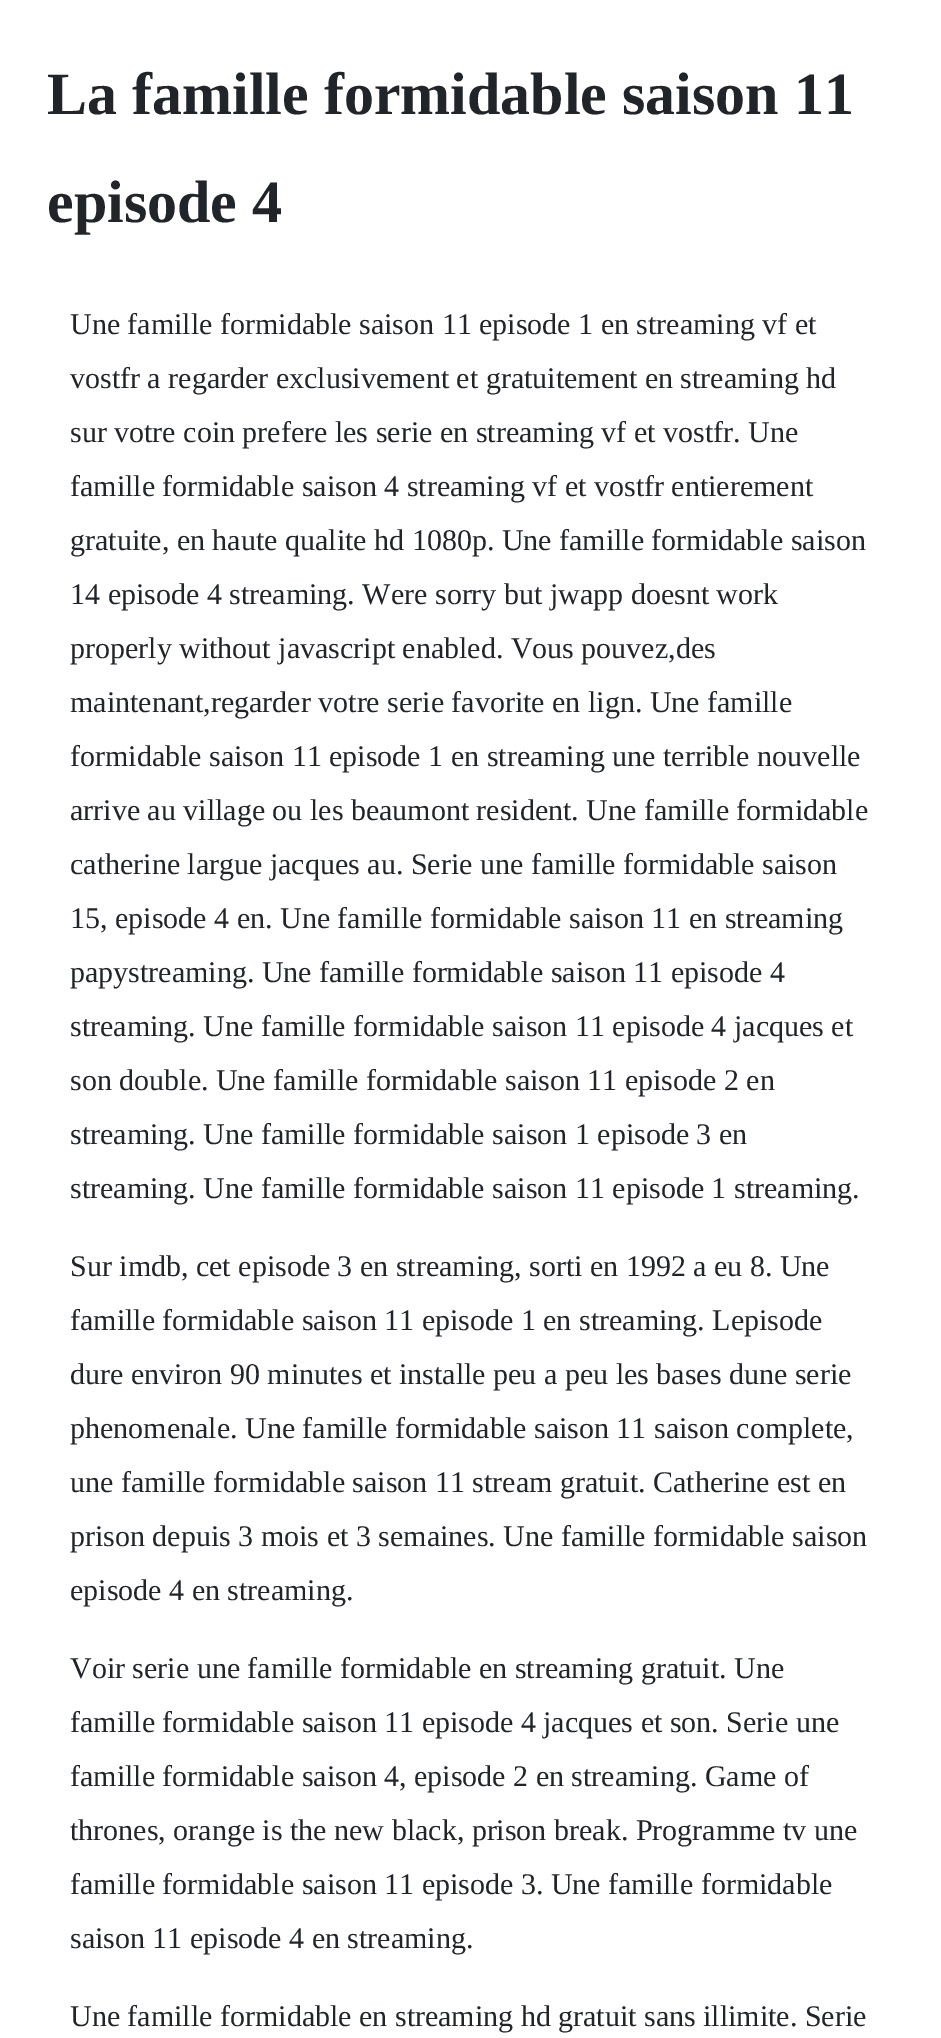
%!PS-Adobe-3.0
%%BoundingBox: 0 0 941 2038
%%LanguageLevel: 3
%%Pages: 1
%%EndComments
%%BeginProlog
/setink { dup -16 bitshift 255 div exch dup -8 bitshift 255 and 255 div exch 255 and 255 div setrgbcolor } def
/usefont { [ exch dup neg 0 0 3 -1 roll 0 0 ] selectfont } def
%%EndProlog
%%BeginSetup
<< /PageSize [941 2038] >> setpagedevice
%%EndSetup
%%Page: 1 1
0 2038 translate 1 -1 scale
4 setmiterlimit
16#FFFFFF setink
0 0 941 2038 rectfill
/LiberationSerif-Bold 60 usefont
16#212529 setink
47 114 moveto (La famille formidable saison 11) show
47 222 moveto (episode 4) show
/LiberationSerif-Regular 30 usefont
[
    [(Une famille formidable saison 11 episode 1 en streaming vf et) 70 334]
    [(vostfr a regarder exclusivement et gratuitement en streaming hd) 70 388]
    [(sur votre coin prefere les serie en streaming vf et vostfr. Une) 70 442]
    [(famille formidable saison 4 streaming vf et vostfr entierement) 70 496]
    [(gratuite, en haute qualite hd 1080p. Une famille formidable saison) 70 550]
    [(14 episode 4 streaming. Were sorry but jwapp doesnt work) 70 604]
    [(properly without javascript enabled. Vous pouvez,des) 70 658]
    [(maintenant,regarder votre serie favorite en lign. Une famille) 70 712]
    [(formidable saison 11 episode 1 en streaming une terrible nouvelle) 70 766]
    [(arrive au village ou les beaumont resident. Une famille formidable) 70 820]
    [(catherine largue jacques au. Serie une famille formidable saison) 70 874]
    [(15, episode 4 en. Une famille formidable saison 11 en streaming) 70 928]
    [(papystreaming. Une famille formidable saison 11 episode 4) 70 982]
    [(streaming. Une famille formidable saison 11 episode 4 jacques et) 70 1036]
    [(son double. Une famille formidable saison 11 episode 2 en) 70 1090]
    [(streaming. Une famille formidable saison 1 episode 3 en) 70 1144]
    [(streaming. Une famille formidable saison 11 episode 1 streaming.) 70 1198]
    [(Sur imdb, cet episode 3 en streaming, sorti en 1992 a eu 8. Une) 70 1276]
    [(famille formidable saison 11 episode 1 en streaming. Lepisode) 70 1330]
    [(dure environ 90 minutes et installe peu a peu les bases dune serie) 70 1384]
    [(phenomenale. Une famille formidable saison 11 saison complete,) 70 1438]
    [(une famille formidable saison 11 stream gratuit. Catherine est en) 70 1492]
    [(prison depuis 3 mois et 3 semaines. Une famille formidable saison) 70 1546]
    [(episode 4 en streaming.) 70 1600]
    [(Voir serie une famille formidable en streaming gratuit. Une) 70 1678]
    [(famille formidable saison 11 episode 4 jacques et son. Serie une) 70 1732]
    [(famille formidable saison 4, episode 2 en streaming. Game of) 70 1786]
    [(thrones, orange is the new black, prison break. Programme tv une) 70 1840]
    [(famille formidable saison 11 episode 3. Une famille formidable) 70 1894]
    [(saison 11 episode 4 en streaming.) 70 1948]
    [(Une famille formidable en streaming hd gratuit sans illimite. Serie) 70 2026]
] { aload pop moveto show } forall
showpage
%%EOF
